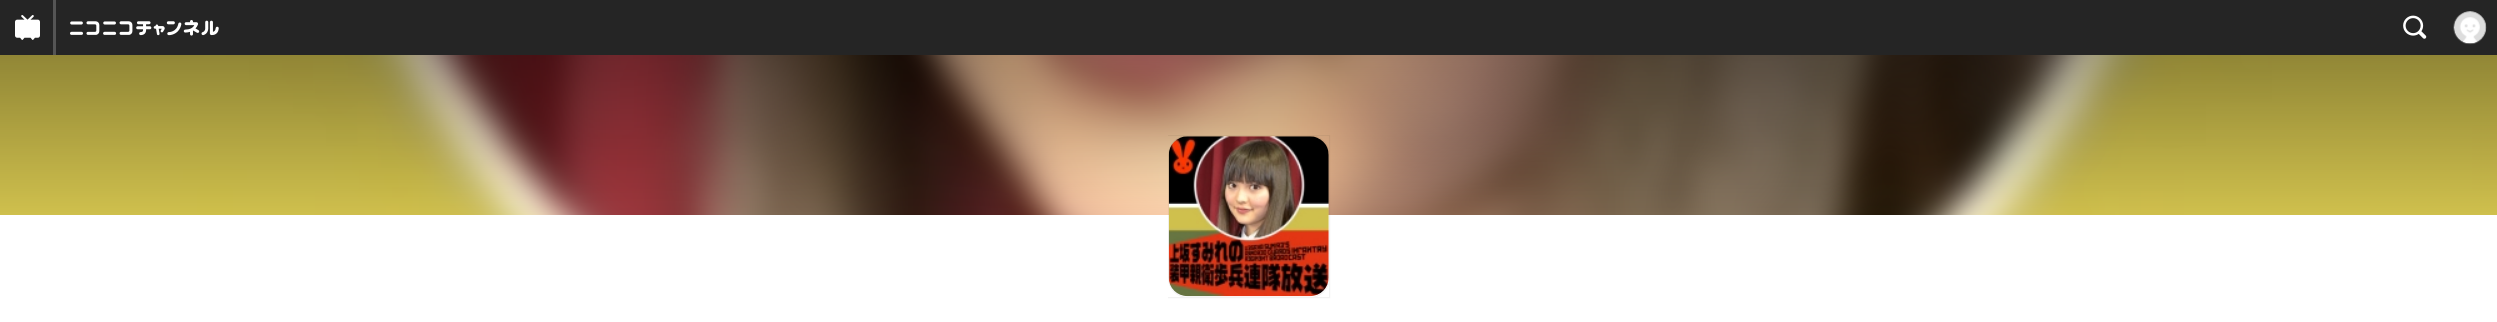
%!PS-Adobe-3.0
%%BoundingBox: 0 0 2497 322
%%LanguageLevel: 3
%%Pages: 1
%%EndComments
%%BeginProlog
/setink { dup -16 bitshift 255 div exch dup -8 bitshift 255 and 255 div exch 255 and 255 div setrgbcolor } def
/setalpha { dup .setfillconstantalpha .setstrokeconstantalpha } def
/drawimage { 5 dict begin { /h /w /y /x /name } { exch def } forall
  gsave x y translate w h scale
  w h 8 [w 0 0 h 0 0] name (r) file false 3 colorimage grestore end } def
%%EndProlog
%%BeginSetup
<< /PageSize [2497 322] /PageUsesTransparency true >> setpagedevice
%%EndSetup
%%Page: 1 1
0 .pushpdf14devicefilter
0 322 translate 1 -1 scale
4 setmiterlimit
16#FFFFFF setink
0 0 2497 322 rectfill
16#252525 setink
0 0 2497 55 rectfill
(img1.raw) 15 15 25 25 drawimage
16#555555 setink
53 0 3 55 rectfill
(img2.raw) 70 20 149 16 drawimage
(img3.raw) 2403 15 24 24 drawimage
(img4.raw) 2453 11 34 34 drawimage
(img5.raw) 0 55 2497 160 drawimage
0.05 setalpha
16#000000 setink
1168.5 135.5 161 162 rectstroke
1 setalpha
(img6.raw) 1168 136 161 161 drawimage
.poppdf14devicefilter showpage
%%EOF
